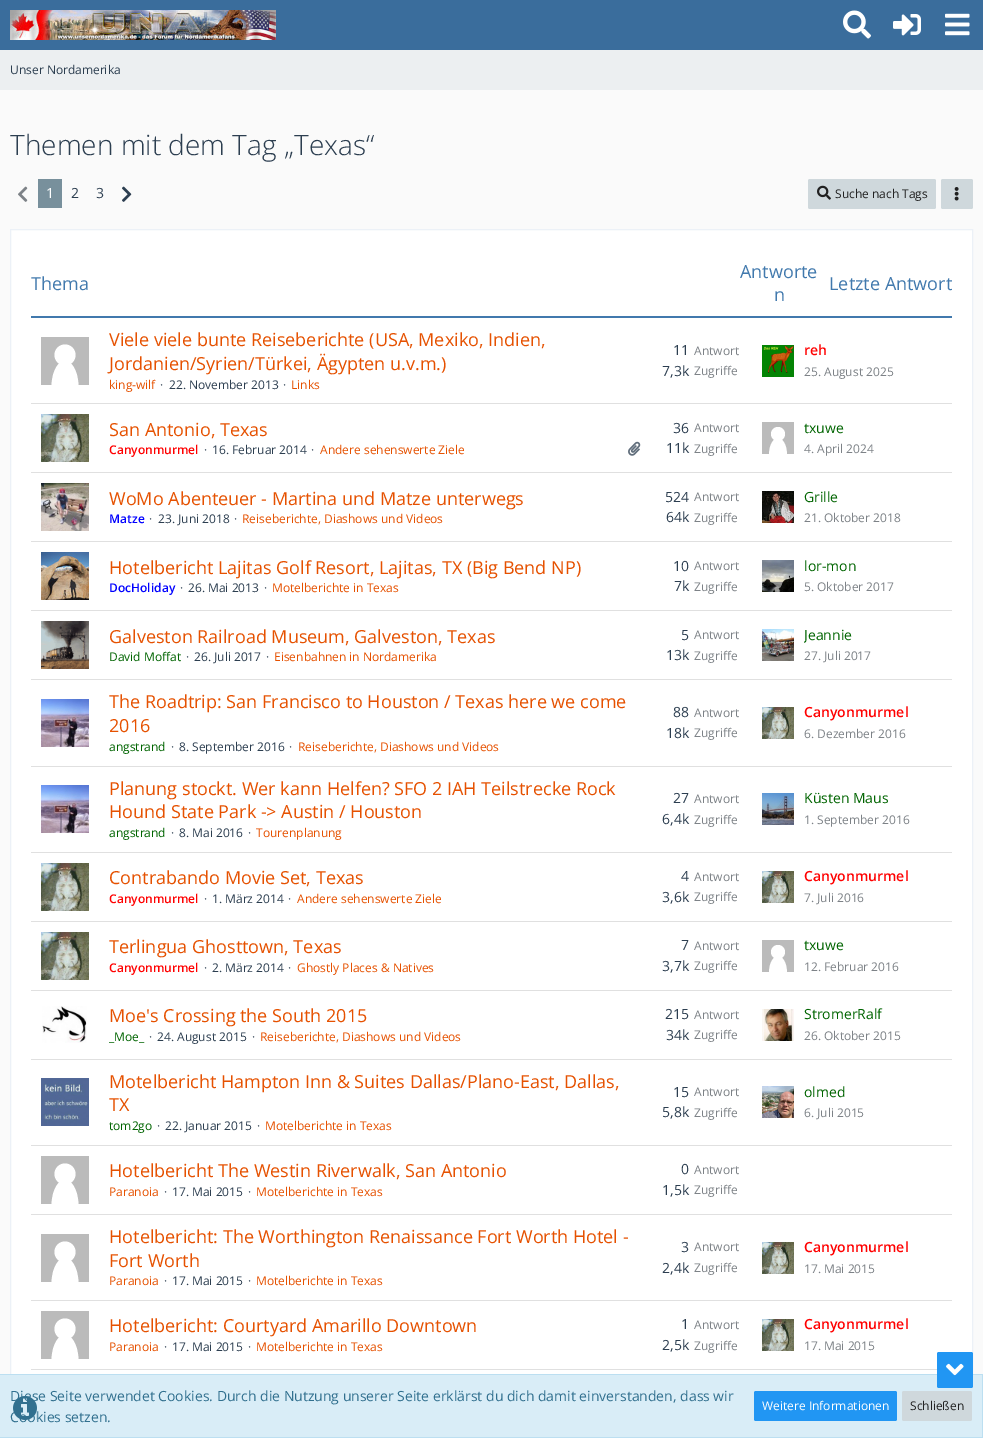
%!PS-Adobe-3.0
%%BoundingBox: 0 0 983 1438
%%LanguageLevel: 3
%%Pages: 1
%%EndComments
%%BeginProlog
/setink { dup -16 bitshift 255 div exch dup -8 bitshift 255 and 255 div exch 255 and 255 div setrgbcolor } def
/usefont { [ exch dup neg 0 0 3 -1 roll 0 0 ] selectfont } def
/disc { newpath 0 360 arc closepath } def
/rrect { 5 dict begin { /r /h /w /y /x } { exch def } forall
  x r add y moveto x w add y 2 copy h add r arct x w add y h add x 1 index r arct
  x y h add x y r arct x y 2 copy exch w add exch r arct closepath end } def
/drawimage { 5 dict begin { /h /w /y /x /name } { exch def } forall
  gsave x y translate w h scale
  w h 8 [w 0 0 h 0 0] name (r) file false 3 colorimage grestore end } def
%%EndProlog
%%BeginSetup
<< /PageSize [983 1438] >> setpagedevice
%%EndSetup
%%Page: 1 1
0 1438 translate 1 -1 scale
4 setmiterlimit
16#FAFAFA setink
0 0 983 1438 rectfill
16#3A6D9C setink
0 0 983 50 rectfill
(img1.raw) 10 10 266 30 drawimage
(img2.raw) 843 10 28 29 drawimage
(img3.raw) 893 14 28 22 drawimage
(img4.raw) 945 13 25 23 drawimage
16#ECEFF1 setink
0 50 983 40 rectfill
/OpenSans-Regular 12 usefont
16#2C3E50 setink
10 74 moveto (Unser Nordamerika) show
/OpenSans-Light 28 usefont
10 155 moveto (Themen mit dem Tag „Texas“) show
(img5.raw) 18 186 10 16 drawimage
16#78909C setink
38 179 24 29 rectfill
/OpenSans-Regular 14 usefont
16#FFFFFF setink
46 198 moveto (1) show
16#2C3E50 setink
71 198 moveto (2) show
96 198 moveto (3) show
(img6.raw) 122 186 10 16 drawimage
16#CFD8DC setink
808 179 128 30 2 rrect fill
(img7.raw) 817 185 14 15 drawimage
/OpenSans-Regular 12 usefont
16#212121 setink
835 198 moveto (Suche nach Tags) show
16#CFD8DC setink
941 179 32 30 2 rrect fill
(img8.raw) 954 187 5 14 drawimage
16#FFFFFF setink
11 230 961 1144 rectfill
16#ECF1F7 setink
10.5 229.5 962 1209 rectstroke
16#4179AD setink
31 316 921 2 rectfill
/OpenSans-Regular 18 usefont
[
    [(Thema) 31 290]
    [(Antworte) 740 278]
    [(n) 774 301]
    [(Letzte Antwort) 829 290]
] { aload pop moveto show } forall
16#BBBBBB setink
41 337 48 48 rectfill
16#FFFFFF setink
51.5 385 moveto 53.5 353 76.5 353 78.5 385 curveto fill
65 355 10.5 disc fill
16#E65100 setink
109 346 moveto (Viele viele bunte Reiseberichte \(USA, Mexiko, Indien,) show
109 370 moveto (Jordanien/Syrien/Türkei, Ägypten u.v.m.\)) show
/OpenSans-Regular 12 usefont
109 389 moveto (king-wilf) show
16#2C3E50 setink
[
    [(·) 160 389]
    [(22. November 2013) 169 389]
    [(·) 283 389]
] { aload pop moveto show } forall
16#E65100 setink
291 389 moveto (Links) show
/OpenSans-Regular 14 usefont
16#2C3E50 setink
673 355 moveto (11) show
/OpenSans-Regular 12 usefont
16#7D8287 setink
694 355 moveto (Antwort) show
/OpenSans-Regular 14 usefont
16#2C3E50 setink
662 376 moveto (7,3k) show
/OpenSans-Regular 12 usefont
16#7D8287 setink
694 375 moveto (Zugriffe) show
(img9.raw) 762 345 32 32 drawimage
/OpenSans-SemiBold 14 usefont
16#FF0000 setink
804 355 moveto (reh) show
/OpenSans-Regular 12 usefont
16#7D8287 setink
804 376 moveto (25. August 2025) show
16#E0E0E0 setink
31 403 921 1 rectfill
(img10.raw) 41 414 48 48 drawimage
/OpenSans-Regular 18 usefont
16#E65100 setink
109 436 moveto (San Antonio, Texas) show
/OpenSans-SemiBold 12 usefont
16#FF0000 setink
109 454 moveto (Canyonmurmel) show
/OpenSans-Regular 12 usefont
16#2C3E50 setink
[
    [(·) 204 454]
    [(16. Februar 2014) 212 454]
    [(·) 311 454]
] { aload pop moveto show } forall
16#E65100 setink
320 454 moveto (Andere sehenswerte Ziele) show
(img11.raw) 628 441 13 15 drawimage
/OpenSans-Regular 14 usefont
16#2C3E50 setink
673 433 moveto (36) show
/OpenSans-Regular 12 usefont
16#7D8287 setink
694 432 moveto (Antwort) show
/OpenSans-Regular 14 usefont
16#2C3E50 setink
666 453 moveto (11k) show
/OpenSans-Regular 12 usefont
16#7D8287 setink
694 453 moveto (Zugriffe) show
16#BBBBBB setink
762 422 32 32 rectfill
16#FFFFFF setink
769 454 moveto 770 433 786 433 787 454 curveto fill
778 434 7 disc fill
/OpenSans-Regular 14 usefont
16#006400 setink
804 433 moveto (txuwe) show
/OpenSans-Regular 12 usefont
16#7D8287 setink
804 453 moveto (4. April 2024) show
16#E0E0E0 setink
31 472 921 1 rectfill
(img12.raw) 41 483 48 48 drawimage
/OpenSans-Regular 18 usefont
16#E65100 setink
109 505 moveto (WoMo Abenteuer - Martina und Matze unterwegs) show
/OpenSans-SemiBold 12 usefont
16#0000FF setink
109 523 moveto (Matze) show
/OpenSans-Regular 12 usefont
16#2C3E50 setink
[
    [(·) 149 523]
    [(23. Juni 2018) 158 523]
    [(·) 234 523]
] { aload pop moveto show } forall
16#E65100 setink
242 523 moveto (Reiseberichte, Diashows und Videos) show
/OpenSans-Regular 14 usefont
16#2C3E50 setink
665 502 moveto (524) show
/OpenSans-Regular 12 usefont
16#7D8287 setink
694 501 moveto (Antwort) show
/OpenSans-Regular 14 usefont
16#2C3E50 setink
666 522 moveto (64k) show
/OpenSans-Regular 12 usefont
16#7D8287 setink
694 522 moveto (Zugriffe) show
(img13.raw) 762 491 32 32 drawimage
/OpenSans-Regular 14 usefont
16#006400 setink
804 502 moveto (Grille) show
/OpenSans-Regular 12 usefont
16#7D8287 setink
804 522 moveto (21. Oktober 2018) show
16#E0E0E0 setink
31 541 921 1 rectfill
(img14.raw) 41 552 48 48 drawimage
/OpenSans-Regular 18 usefont
16#E65100 setink
109 574 moveto (Hotelbericht Lajitas Golf Resort, Lajitas, TX \(Big Bend NP\)) show
/OpenSans-SemiBold 12 usefont
16#0000FF setink
109 592 moveto (DocHoliday) show
/OpenSans-Regular 12 usefont
16#2C3E50 setink
[
    [(·) 180 592]
    [(26. Mai 2013) 188 592]
    [(·) 264 592]
] { aload pop moveto show } forall
16#E65100 setink
272 592 moveto (Motelberichte in Texas) show
/OpenSans-Regular 14 usefont
16#2C3E50 setink
673 571 moveto (10) show
/OpenSans-Regular 12 usefont
16#7D8287 setink
694 570 moveto (Antwort) show
/OpenSans-Regular 14 usefont
16#2C3E50 setink
674 591 moveto (7k) show
/OpenSans-Regular 12 usefont
16#7D8287 setink
694 591 moveto (Zugriffe) show
(img15.raw) 762 560 32 32 drawimage
/OpenSans-Regular 14 usefont
16#006400 setink
804 571 moveto (lor-mon) show
/OpenSans-Regular 12 usefont
16#7D8287 setink
804 591 moveto (5. Oktober 2017) show
16#E0E0E0 setink
31 610 921 1 rectfill
(img16.raw) 41 621 48 48 drawimage
/OpenSans-Regular 18 usefont
16#E65100 setink
109 643 moveto (Galveston Railroad Museum, Galveston, Texas) show
/OpenSans-Regular 12 usefont
16#006400 setink
109 661 moveto (David Moffat) show
16#2C3E50 setink
[
    [(·) 186 661]
    [(26. Juli 2017) 194 661]
    [(·) 266 661]
] { aload pop moveto show } forall
16#E65100 setink
274 661 moveto (Eisenbahnen in Nordamerika) show
/OpenSans-Regular 14 usefont
16#2C3E50 setink
681 640 moveto (5) show
/OpenSans-Regular 12 usefont
16#7D8287 setink
694 639 moveto (Antwort) show
/OpenSans-Regular 14 usefont
16#2C3E50 setink
666 660 moveto (13k) show
/OpenSans-Regular 12 usefont
16#7D8287 setink
694 660 moveto (Zugriffe) show
(img17.raw) 762 629 32 32 drawimage
gsave
804 625 138 20 rectclip
/OpenSans-Regular 14 usefont
16#006400 setink
804 640 moveto (Jeannie) show
grestore
804 660 moveto (27. Juli 2017) show
16#E0E0E0 setink
31 679 921 1 rectfill
(img18.raw) 41 699 48 48 drawimage
/OpenSans-Regular 18 usefont
16#E65100 setink
109 708 moveto (The Roadtrip: San Francisco to Houston / Texas here we come) show
109 732 moveto (2016) show
/OpenSans-Regular 12 usefont
16#006400 setink
109 751 moveto (angstrand) show
16#2C3E50 setink
[
    [(·) 171 751]
    [(8. September 2016) 179 751]
    [(·) 289 751]
] { aload pop moveto show } forall
16#E65100 setink
298 751 moveto (Reiseberichte, Diashows und Videos) show
/OpenSans-Regular 14 usefont
16#2C3E50 setink
673 717 moveto (88) show
/OpenSans-Regular 12 usefont
16#7D8287 setink
694 717 moveto (Antwort) show
/OpenSans-Regular 14 usefont
16#2C3E50 setink
666 738 moveto (18k) show
/OpenSans-Regular 12 usefont
16#7D8287 setink
694 737 moveto (Zugriffe) show
(img19.raw) 762 707 32 32 drawimage
/OpenSans-SemiBold 14 usefont
16#FF0000 setink
804 717 moveto (Canyonmurmel) show
/OpenSans-Regular 12 usefont
16#7D8287 setink
804 738 moveto (6. Dezember 2016) show
16#E0E0E0 setink
31 766 921 1 rectfill
(img18.raw) 41 785 48 48 drawimage
/OpenSans-Regular 18 usefont
16#E65100 setink
109 795 moveto (Planung stockt. Wer kann Helfen? SFO 2 IAH Teilstrecke Rock) show
109 818 moveto (Hound State Park -> Austin / Houston) show
/OpenSans-Regular 12 usefont
16#006400 setink
109 837 moveto (angstrand) show
16#2C3E50 setink
[
    [(·) 171 837]
    [(8. Mai 2016) 179 837]
    [(·) 248 837]
] { aload pop moveto show } forall
16#E65100 setink
256 837 moveto (Tourenplanung) show
/OpenSans-Regular 14 usefont
16#2C3E50 setink
673 803 moveto (27) show
/OpenSans-Regular 12 usefont
16#7D8287 setink
694 803 moveto (Antwort) show
/OpenSans-Regular 14 usefont
16#2C3E50 setink
662 824 moveto (6,4k) show
/OpenSans-Regular 12 usefont
16#7D8287 setink
694 824 moveto (Zugriffe) show
(img20.raw) 762 793 32 32 drawimage
/OpenSans-Regular 14 usefont
16#006400 setink
804 803 moveto (Küsten Maus) show
/OpenSans-Regular 12 usefont
16#7D8287 setink
804 824 moveto (1. September 2016) show
16#E0E0E0 setink
31 852 921 1 rectfill
(img10.raw) 41 863 48 48 drawimage
/OpenSans-Regular 18 usefont
16#E65100 setink
109 884 moveto (Contrabando Movie Set, Texas) show
/OpenSans-SemiBold 12 usefont
16#FF0000 setink
109 903 moveto (Canyonmurmel) show
/OpenSans-Regular 12 usefont
16#2C3E50 setink
[
    [(·) 204 903]
    [(1. März 2014) 212 903]
    [(·) 288 903]
] { aload pop moveto show } forall
16#E65100 setink
297 903 moveto (Andere sehenswerte Ziele) show
/OpenSans-Regular 14 usefont
16#2C3E50 setink
681 881 moveto (4) show
/OpenSans-Regular 12 usefont
16#7D8287 setink
694 881 moveto (Antwort) show
/OpenSans-Regular 14 usefont
16#2C3E50 setink
662 902 moveto (3,6k) show
/OpenSans-Regular 12 usefont
16#7D8287 setink
694 901 moveto (Zugriffe) show
(img19.raw) 762 871 32 32 drawimage
/OpenSans-SemiBold 14 usefont
16#FF0000 setink
804 881 moveto (Canyonmurmel) show
/OpenSans-Regular 12 usefont
16#7D8287 setink
804 902 moveto (7. Juli 2016) show
16#E0E0E0 setink
31 921 921 1 rectfill
(img10.raw) 41 932 48 48 drawimage
/OpenSans-Regular 18 usefont
16#E65100 setink
109 953 moveto (Terlingua Ghosttown, Texas) show
/OpenSans-SemiBold 12 usefont
16#FF0000 setink
109 972 moveto (Canyonmurmel) show
/OpenSans-Regular 12 usefont
16#2C3E50 setink
[
    [(·) 204 972]
    [(2. März 2014) 212 972]
    [(·) 288 972]
] { aload pop moveto show } forall
16#E65100 setink
297 972 moveto (Ghostly Places & Natives) show
/OpenSans-Regular 14 usefont
16#2C3E50 setink
681 950 moveto (7) show
/OpenSans-Regular 12 usefont
16#7D8287 setink
694 950 moveto (Antwort) show
/OpenSans-Regular 14 usefont
16#2C3E50 setink
662 971 moveto (3,7k) show
/OpenSans-Regular 12 usefont
16#7D8287 setink
694 970 moveto (Zugriffe) show
16#BBBBBB setink
762 940 32 32 rectfill
16#FFFFFF setink
769 972 moveto 770 951 786 951 787 972 curveto fill
778 952 7 disc fill
/OpenSans-Regular 14 usefont
16#006400 setink
804 950 moveto (txuwe) show
/OpenSans-Regular 12 usefont
16#7D8287 setink
804 971 moveto (12. Februar 2016) show
16#E0E0E0 setink
31 990 921 1 rectfill
(img21.raw) 42 1006 45 37 drawimage
/OpenSans-Regular 18 usefont
16#E65100 setink
109 1022 moveto (Moe's Crossing the South 2015) show
/OpenSans-Regular 12 usefont
16#006400 setink
109 1041 moveto (_Moe_) show
16#2C3E50 setink
[
    [(·) 149 1041]
    [(24. August 2015) 157 1041]
    [(·) 252 1041]
] { aload pop moveto show } forall
16#E65100 setink
260 1041 moveto (Reiseberichte, Diashows und Videos) show
/OpenSans-Regular 14 usefont
16#2C3E50 setink
665 1019 moveto (215) show
/OpenSans-Regular 12 usefont
16#7D8287 setink
694 1019 moveto (Antwort) show
/OpenSans-Regular 14 usefont
16#2C3E50 setink
666 1040 moveto (34k) show
/OpenSans-Regular 12 usefont
16#7D8287 setink
694 1039 moveto (Zugriffe) show
(img22.raw) 762 1009 32 32 drawimage
/OpenSans-Regular 14 usefont
16#006400 setink
804 1019 moveto (StromerRalf) show
/OpenSans-Regular 12 usefont
16#7D8287 setink
804 1040 moveto (26. Oktober 2015) show
16#E0E0E0 setink
31 1059 921 1 rectfill
(img23.raw) 41 1078 48 48 drawimage
/OpenSans-Regular 18 usefont
16#E65100 setink
109 1088 moveto (Motelbericht Hampton Inn & Suites Dallas/Plano-East, Dallas,) show
109 1111 moveto (TX) show
/OpenSans-Regular 12 usefont
16#006400 setink
109 1130 moveto (tom2go) show
16#2C3E50 setink
[
    [(·) 157 1130]
    [(22. Januar 2015) 165 1130]
    [(·) 257 1130]
] { aload pop moveto show } forall
16#E65100 setink
265 1130 moveto (Motelberichte in Texas) show
/OpenSans-Regular 14 usefont
16#2C3E50 setink
673 1097 moveto (15) show
/OpenSans-Regular 12 usefont
16#7D8287 setink
694 1096 moveto (Antwort) show
/OpenSans-Regular 14 usefont
16#2C3E50 setink
662 1117 moveto (5,8k) show
/OpenSans-Regular 12 usefont
16#7D8287 setink
694 1117 moveto (Zugriffe) show
(img24.raw) 762 1086 32 32 drawimage
/OpenSans-Regular 14 usefont
16#006400 setink
804 1097 moveto (olmed) show
/OpenSans-Regular 12 usefont
16#7D8287 setink
804 1117 moveto (6. Juli 2015) show
16#E0E0E0 setink
31 1145 921 1 rectfill
16#BBBBBB setink
41 1156 48 48 rectfill
16#FFFFFF setink
51.5 1204 moveto 53.5 1172 76.5 1172 78.5 1204 curveto fill
65 1174 10.5 disc fill
/OpenSans-Regular 18 usefont
16#E65100 setink
109 1177 moveto (Hotelbericht The Westin Riverwalk, San Antonio) show
/OpenSans-Regular 12 usefont
109 1196 moveto (Paranoia) show
16#2C3E50 setink
[
    [(·) 164 1196]
    [(17. Mai 2015) 172 1196]
    [(·) 248 1196]
] { aload pop moveto show } forall
16#E65100 setink
256 1196 moveto (Motelberichte in Texas) show
/OpenSans-Regular 14 usefont
16#2C3E50 setink
681 1174 moveto (0) show
/OpenSans-Regular 12 usefont
16#7D8287 setink
694 1174 moveto (Antwort) show
/OpenSans-Regular 14 usefont
16#2C3E50 setink
662 1195 moveto (1,5k) show
/OpenSans-Regular 12 usefont
16#7D8287 setink
694 1194 moveto (Zugriffe) show
16#E0E0E0 setink
31 1214 921 1 rectfill
16#BBBBBB setink
41 1234 48 48 rectfill
16#FFFFFF setink
51.5 1282 moveto 53.5 1250 76.5 1250 78.5 1282 curveto fill
65 1252 10.5 disc fill
/OpenSans-Regular 18 usefont
16#E65100 setink
109 1243 moveto (Hotelbericht: The Worthington Renaissance Fort Worth Hotel -) show
109 1267 moveto (Fort Worth) show
/OpenSans-Regular 12 usefont
109 1285 moveto (Paranoia) show
16#2C3E50 setink
[
    [(·) 164 1285]
    [(17. Mai 2015) 172 1285]
    [(·) 248 1285]
] { aload pop moveto show } forall
16#E65100 setink
256 1285 moveto (Motelberichte in Texas) show
/OpenSans-Regular 14 usefont
16#2C3E50 setink
681 1252 moveto (3) show
/OpenSans-Regular 12 usefont
16#7D8287 setink
694 1251 moveto (Antwort) show
/OpenSans-Regular 14 usefont
16#2C3E50 setink
662 1273 moveto (2,4k) show
/OpenSans-Regular 12 usefont
16#7D8287 setink
694 1272 moveto (Zugriffe) show
(img19.raw) 762 1242 32 32 drawimage
/OpenSans-SemiBold 14 usefont
16#FF0000 setink
804 1252 moveto (Canyonmurmel) show
/OpenSans-Regular 12 usefont
16#7D8287 setink
804 1273 moveto (17. Mai 2015) show
16#E0E0E0 setink
31 1300 921 1 rectfill
16#BBBBBB setink
41 1311 48 48 rectfill
16#FFFFFF setink
51.5 1359 moveto 53.5 1327 76.5 1327 78.5 1359 curveto fill
65 1329 10.5 disc fill
/OpenSans-Regular 18 usefont
16#E65100 setink
109 1332 moveto (Hotelbericht: Courtyard Amarillo Downtown) show
/OpenSans-Regular 12 usefont
109 1351 moveto (Paranoia) show
16#2C3E50 setink
[
    [(·) 164 1351]
    [(17. Mai 2015) 172 1351]
    [(·) 248 1351]
] { aload pop moveto show } forall
16#E65100 setink
256 1351 moveto (Motelberichte in Texas) show
/OpenSans-Regular 14 usefont
16#2C3E50 setink
681 1329 moveto (1) show
/OpenSans-Regular 12 usefont
16#7D8287 setink
694 1329 moveto (Antwort) show
/OpenSans-Regular 14 usefont
16#2C3E50 setink
662 1350 moveto (2,5k) show
/OpenSans-Regular 12 usefont
16#7D8287 setink
694 1350 moveto (Zugriffe) show
(img19.raw) 762 1319 32 32 drawimage
/OpenSans-SemiBold 14 usefont
16#FF0000 setink
804 1329 moveto (Canyonmurmel) show
/OpenSans-Regular 12 usefont
16#7D8287 setink
804 1350 moveto (17. Mai 2015) show
[
    [31 1369 906 1 16#E0E0E0]
    [0 1375 982 62 16#D9EDF7]
    [0 1374 983 1 16#BCDFF1]
] { aload pop setink rectfill } forall
16#2196F3 setink
937 1352 36 36 2 rrect fill
(img25.raw) 946 1363 18 13 drawimage
16#BCDFF1 setink
982 1374 1 64 rectfill
0 1437 983 1 rectfill
/OpenSans-Regular 14 usefont
16#31708F setink
10 1401 moveto (Diese Seite verwendet Cookies. Durch die Nutzung unserer Seite erklärst du dich damit einverstanden, dass wir) show
10 1422 moveto (Cookies setzen.) show
16#2196F3 setink
754 1391 143 30 2 rrect fill
/OpenSans-Regular 12 usefont
16#FFFFFF setink
762 1410 moveto (Weitere Informationen) show
16#CFD8DC setink
902 1391 70 30 2 rrect fill
16#212121 setink
910 1410 moveto (Schließen) show
(img26.raw) 13 1396 24 24 drawimage
showpage
%%EOF
